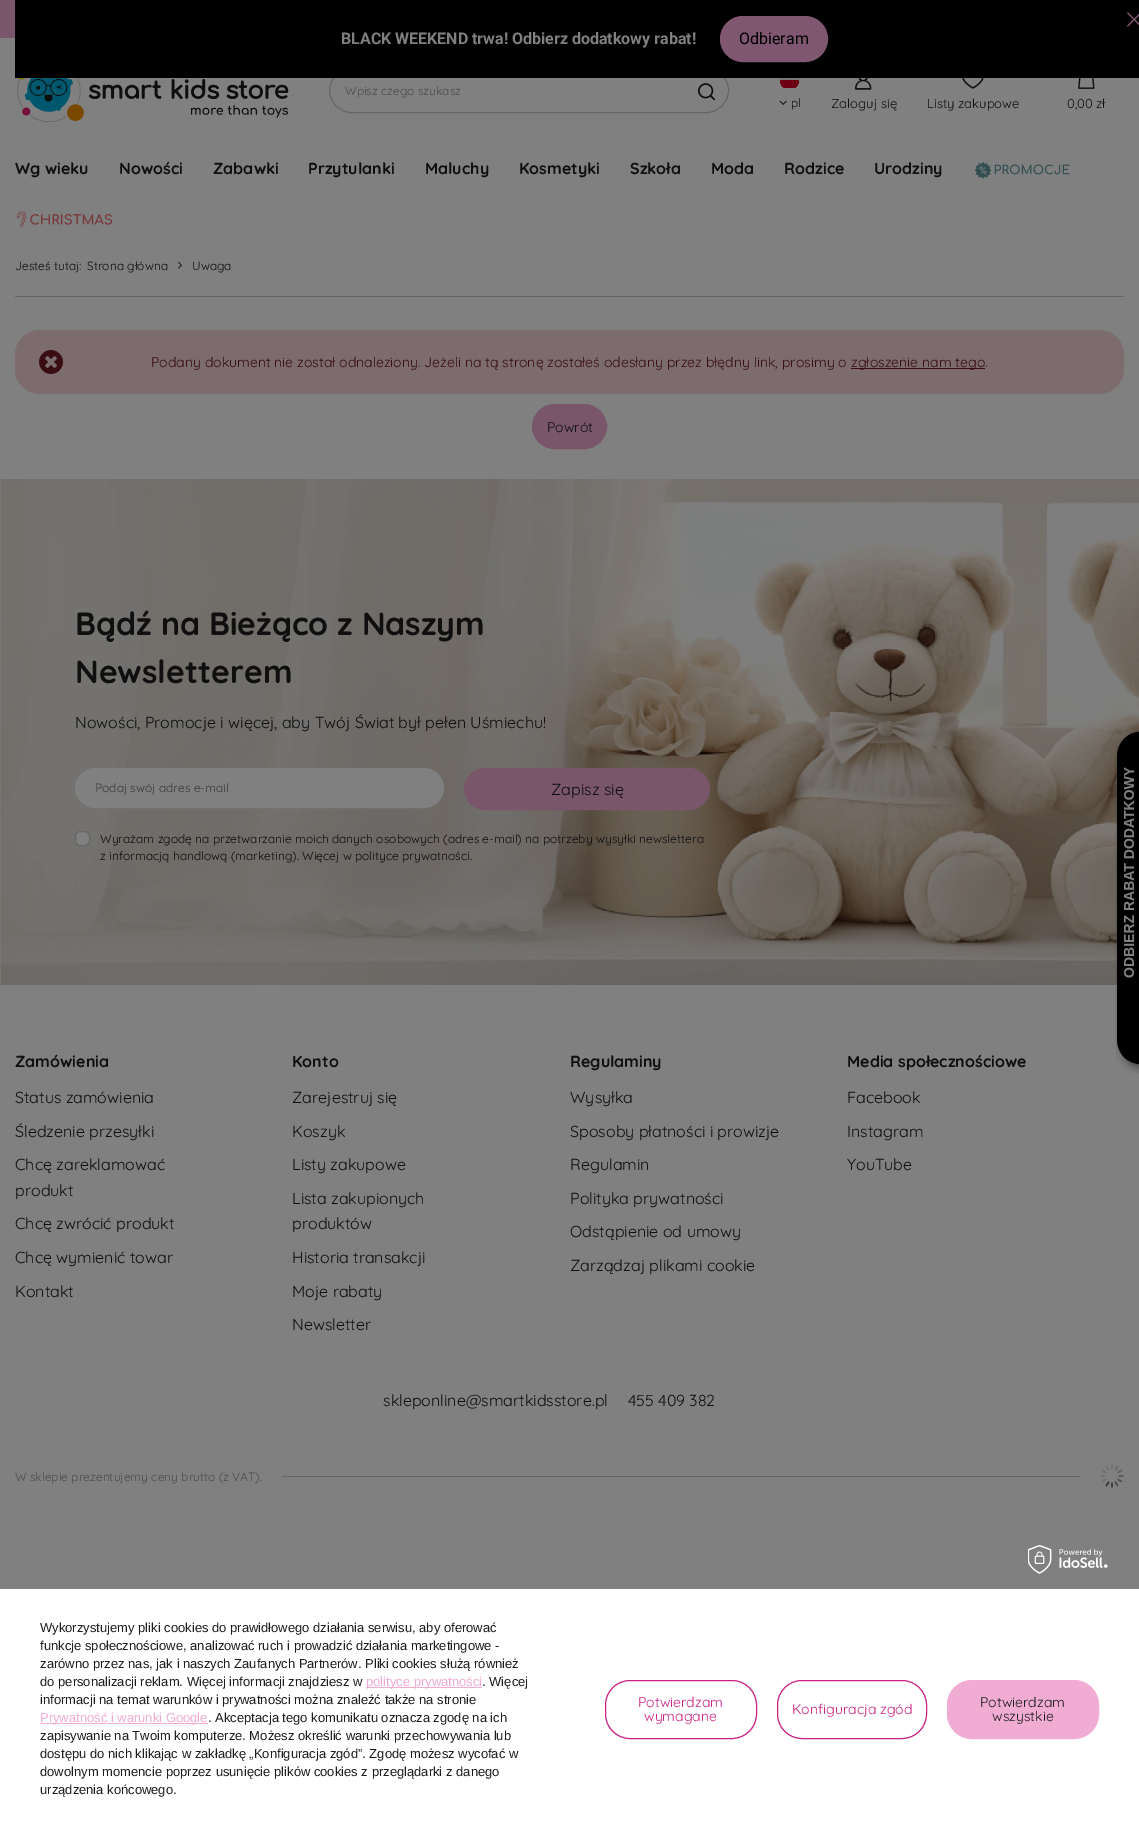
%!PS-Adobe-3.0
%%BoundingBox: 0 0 1139 1829
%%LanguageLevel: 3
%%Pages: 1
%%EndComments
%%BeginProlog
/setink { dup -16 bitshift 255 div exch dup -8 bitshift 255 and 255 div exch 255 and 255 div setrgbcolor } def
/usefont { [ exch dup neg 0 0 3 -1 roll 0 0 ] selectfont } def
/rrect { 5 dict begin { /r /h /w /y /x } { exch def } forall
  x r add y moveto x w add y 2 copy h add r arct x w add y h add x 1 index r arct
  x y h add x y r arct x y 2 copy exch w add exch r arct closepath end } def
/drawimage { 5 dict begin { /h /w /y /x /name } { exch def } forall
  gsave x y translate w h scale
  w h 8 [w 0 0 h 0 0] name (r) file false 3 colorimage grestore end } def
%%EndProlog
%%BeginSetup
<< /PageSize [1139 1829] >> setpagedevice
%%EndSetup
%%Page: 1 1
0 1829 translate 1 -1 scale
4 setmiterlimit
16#808080 setink
0 0 1139 1829 rectfill
16#666666 setink
329.5 68.5 399 44 22 rrect stroke
16#000000 setink
15 0 1124 78 rectfill
(img1.raw) 1127 12 12 15 drawimage
/Roboto-Bold 16 usefont
16#808080 setink
341 44 moveto (BLACK WEEKEND trwa! Odbierz dodatkowy rabat!) show
16#805771 setink
721.5 17.5 105 43 21.5 rrect gsave fill grestore
3 setlinewidth
stroke
/Roboto-Regular 16 usefont
16#000000 setink
739 44 moveto (Odbieram) show
16#79566A setink
0 0 15 38 rectfill
(img2.raw) 17 78 272 44 drawimage
/Quicksand-Regular 12 usefont
16#4D4D4D setink
345 95 moveto (Wpisz czego szukasz) show
(img3.raw) 698 83 17 18 drawimage
16#787878 setink
780 78 19 2 rectfill
gsave
780 70 19 19 9.5 rrect clip newpath
16#6C0014 setink
780 80 19 8 rectfill
grestore
(img4.raw) 779 100 8 5 drawimage
16#0F0F0F setink
791 107 moveto (pl) show
(img5.raw) 855 78 17 12 drawimage
/Quicksand-Regular 13 usefont
831 108 moveto (Zaloguj się) show
(img6.raw) 962 78 22 11 drawimage
927 108 moveto (Listy zakupowe) show
(img7.raw) 1078 78 17 11 drawimage
1067 108 moveto (0,00 zł) show
/Quicksand-Bold 16 usefont
[
    [(Wg wieku) 15 174]
    [(Nowości) 119 174]
    [(Zabawki) 213 174]
    [(Przytulanki) 308 174]
    [(Maluchy) 425 174]
    [(Kosmetyki) 519 174]
    [(Szkoła) 630 174]
    [(Moda) 711 174]
    [(Rodzice) 784 174]
    [(Urodziny) 874 174]
] { aload pop moveto show } forall
(img8.raw) 974 162 96 17 drawimage
(img9.raw) 16 211 97 17 drawimage
16#666666 setink
15 296 1109 1 rectfill
/Quicksand-Regular 12 usefont
16#0F0F0F setink
15 270 moveto (Jesteś tutaj:) show
87 270 moveto (Strona główna) show
(img10.raw) 178 261 4 8 drawimage
192 270 moveto (Uwaga) show
16#7C6C6D setink
15 330 1109 64 25 rrect fill
(img11.raw) 39 350 24 24 drawimage
/Quicksand-Regular 14 usefont
16#390E12 setink
151 367 moveto (Podany dokument nie został odnaleziony. Jeżeli na tą stronę zostałeś odesłany przez błędny link, prosimy o) show
851 368 134 1 rectfill
851 367 moveto (zgłoszenie nam tego.) show
16#79566A setink
532.5 404.5 74 44 22 rrect gsave fill grestore
1 setlinewidth
stroke
16#0F0F0F setink
547 432 moveto (Powrót) show
(img12.raw) 0 479 1139 506 drawimage
/Quicksand-Bold 32 usefont
75 635 moveto (Bądź na Bieżąco z Naszym) show
75 683 moveto (Newsletterem) show
/Quicksand-Regular 16 usefont
75 728 moveto (Nowości, Promocje i więcej, aby Twój Świat był pełen Uśmiechu!) show
16#808080 setink
75.5 768.5 368 39 19.5 rrect gsave fill grestore
stroke
/Quicksand-Regular 12 usefont
16#3A3A3A setink
95 792 moveto (Podaj swój adres e-mail) show
16#79566A setink
464.5 768.5 245 41 20.5 rrect gsave fill grestore
stroke
/Quicksand-Regular 16 usefont
16#0F0F0F setink
551 795 moveto (Zapisz się) show
16#808080 setink
75.5 831.5 14 14 4.5 rrect gsave fill grestore
16#666666 setink
stroke
/Quicksand-Regular 12 usefont
16#0F0F0F setink
100 843 moveto (Wyrażam zgodę na przetwarzanie moich danych osobowych \(adres e-mail\) na potrzeby wysyłki newslettera) show
100 860 moveto (z informacją handlową \(marketing\). Więcej w polityce prywatności.) show
/Quicksand-Bold 16 usefont
15 1067 moveto (Zamówienia) show
/Quicksand-Regular 16 usefont
[
    [(Status zamówienia) 15 1103]
    [(Śledzenie przesyłki) 15 1137]
    [(Chcę zareklamować) 15 1170]
    [(produkt) 15 1196]
    [(Chcę zwrócić produkt) 15 1229]
    [(Chcę wymienić towar) 15 1263]
    [(Kontakt) 15 1297]
] { aload pop moveto show } forall
/Quicksand-Bold 16 usefont
292 1067 moveto (Konto) show
/Quicksand-Regular 16 usefont
[
    [(Zarejestruj się) 292 1103]
    [(Koszyk) 292 1137]
    [(Listy zakupowe) 292 1170]
    [(Lista zakupionych) 292 1204]
    [(produktów) 292 1229]
    [(Historia transakcji) 292 1263]
    [(Moje rabaty) 292 1297]
    [(Newsletter) 292 1330]
] { aload pop moveto show } forall
/Quicksand-Bold 16 usefont
570 1067 moveto (Regulaminy) show
/Quicksand-Regular 16 usefont
[
    [(Wysyłka) 570 1103]
    [(Sposoby płatności i prowizje) 570 1137]
    [(Regulamin) 570 1170]
    [(Polityka prywatności) 570 1204]
    [(Odstąpienie od umowy) 570 1237]
    [(Zarządzaj plikami cookie) 570 1271]
] { aload pop moveto show } forall
/Quicksand-Bold 16 usefont
847 1067 moveto (Media społecznościowe) show
/Quicksand-Regular 16 usefont
[
    [(Facebook) 847 1103]
    [(Instagram) 847 1137]
    [(YouTube) 847 1170]
    [(skleponline@smartkidsstore.pl) 383 1406]
    [(455 409 382) 628 1406]
] { aload pop moveto show } forall
/Quicksand-Regular 12 usefont
16#4D4D4D setink
15 1481 moveto (W sklepie prezentujemy ceny brutto \(z VAT\).) show
16#666666 setink
282 1476 798 1 rectfill
(img13.raw) 1100 1464 24 24 drawimage
(img14.raw) 1115 729 24 345 drawimage
16#FFFFFF setink
0 1589 1139 240 rectfill
(img15.raw) 1028 1545 80 29 drawimage
/LiberationSans-Regular 13 usefont
16#1D1D1D setink
[
    [(Wykorzystujemy pliki cookies do prawidłowego działania serwisu, aby oferować) 40 1632]
    [(funkcje społecznościowe, analizować ruch i prowadzić działania marketingowe -) 40 1650]
    [(zarówno przez nas, jak i naszych Zaufanych Partnerów. Pliki cookies służą również) 40 1668]
    [(do personalizacji reklam. Więcej informacji znajdziesz w) 40 1686]
] { aload pop moveto show } forall
16#F1ACD4 setink
366 1687 116 1 rectfill
366 1686 moveto (polityce prywatności) show
16#1D1D1D setink
482 1686 moveto (. Więcej) show
40 1704 moveto (informacji na temat warunków i prywatności można znaleźć także na stronie) show
16#F1ACD4 setink
40 1723 168 1 rectfill
40 1722 moveto (Prywatność i warunki Google) show
16#1D1D1D setink
[
    [(. Akceptacja tego komunikatu oznacza zgodę na ich) 208 1722]
    [(zapisywanie na Twoim komputerze. Możesz określić warunki przechowywania lub) 40 1740]
    [(dostępu do nich klikając w zakładkę „Konfiguracja zgód”. Zgodę możesz wycofać w) 40 1758]
    [(dowolnym momencie poprzez usunięcie plików cookies z przeglądarki z danego) 40 1776]
    [(urządzenia końcowego.) 40 1794]
] { aload pop moveto show } forall
16#CA2383 setink
605.5 1680.5 151 58 24.5 rrect stroke
/Quicksand-Regular 14 usefont
638 1707 moveto (Potwierdzam) show
644 1721 moveto (wymagane) show
777.5 1680.5 149 58 24.5 rrect stroke
792 1714 moveto (Konfiguracja zgód) show
16#F1ACD4 setink
947.5 1680.5 151 58 24.5 rrect gsave fill grestore
stroke
16#1D1D1D setink
980 1707 moveto (Potwierdzam) show
992 1721 moveto (wszystkie) show
showpage
%%EOF
